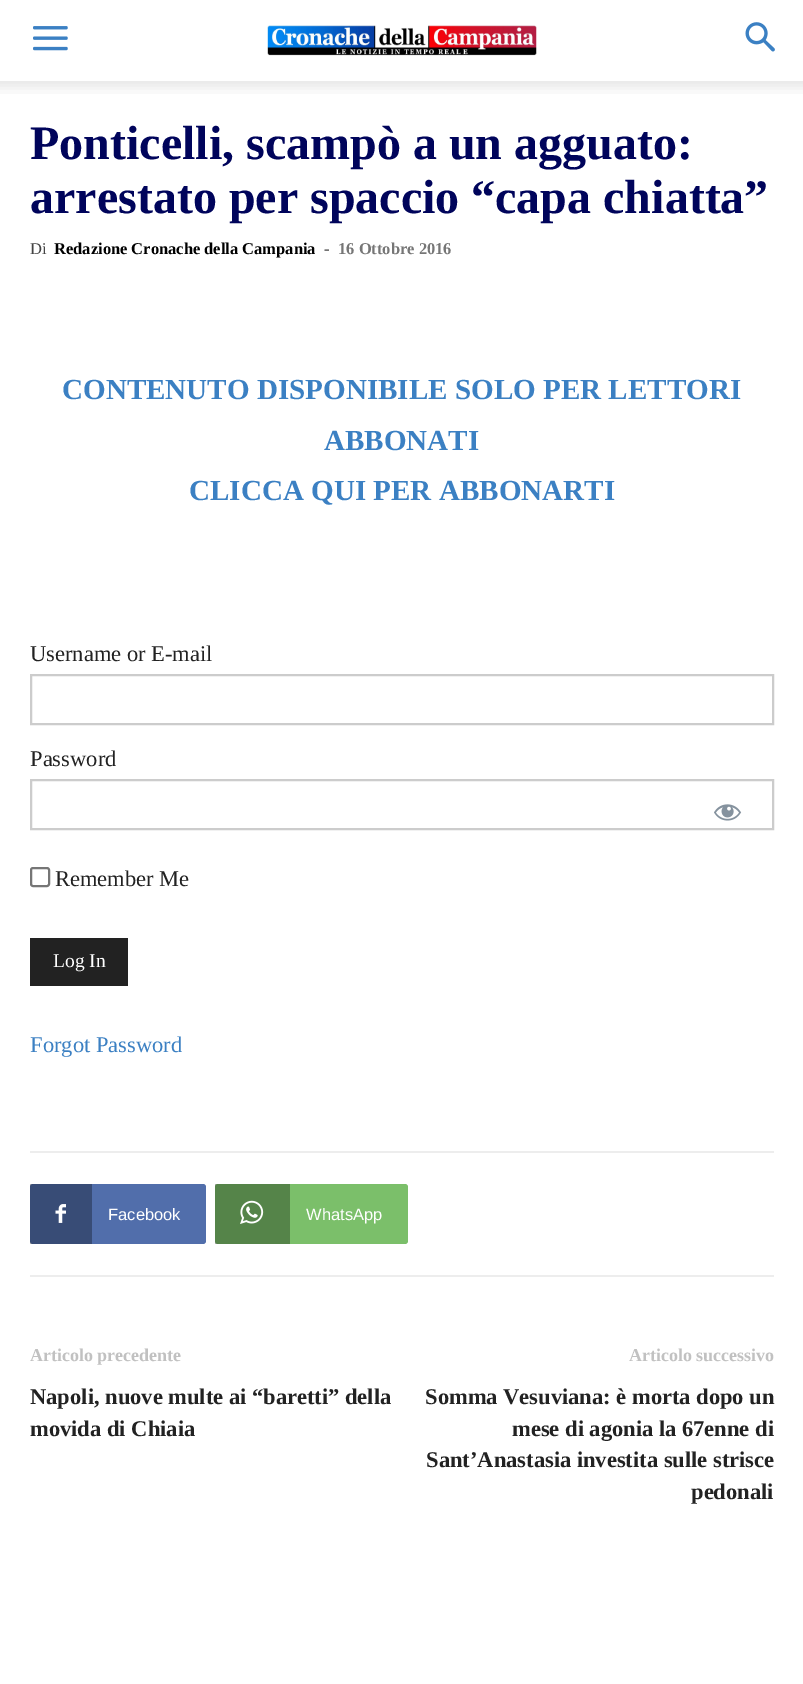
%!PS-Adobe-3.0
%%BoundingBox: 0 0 803 1684
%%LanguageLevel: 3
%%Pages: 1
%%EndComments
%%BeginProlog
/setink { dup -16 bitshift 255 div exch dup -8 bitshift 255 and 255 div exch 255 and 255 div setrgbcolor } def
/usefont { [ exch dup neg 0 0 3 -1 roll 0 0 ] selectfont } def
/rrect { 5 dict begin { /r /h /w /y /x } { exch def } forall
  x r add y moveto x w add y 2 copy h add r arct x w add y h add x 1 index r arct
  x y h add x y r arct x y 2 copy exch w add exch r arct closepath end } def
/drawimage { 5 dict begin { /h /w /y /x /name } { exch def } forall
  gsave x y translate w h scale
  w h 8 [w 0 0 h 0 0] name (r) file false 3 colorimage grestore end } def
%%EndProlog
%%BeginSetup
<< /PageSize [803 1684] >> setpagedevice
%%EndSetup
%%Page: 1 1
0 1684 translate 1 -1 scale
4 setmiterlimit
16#FFFFFF setink
0 0 803 1684 rectfill
(img1.raw) 33 26 35 25 drawimage
(img2.raw) 267 25 270 31 drawimage
(img3.raw) 745 22 30 30 drawimage
(img4.raw) 0 81 803 13 drawimage
16#B0B0B0 setink
215 1184 3 60 rectfill
30 1184 3 60 rectfill
/LiberationSerif-Bold 48 usefont
16#00045B setink
30 159 moveto (Ponticelli, scampò a un agguato:) show
30 213 moveto (arrestato per spaccio “capa chiatta”) show
/LiberationSerif-Regular 16.5 usefont
16#444444 setink
30 254 moveto (Di) show
/LiberationSerif-Bold 16.5 usefont
16#000000 setink
54 254 moveto (Redazione Cronache della Campania) show
/LiberationSerif-Regular 16.5 usefont
16#444444 setink
324 254 moveto (-) show
/LiberationSerif-Bold 16.5 usefont
16#767676 setink
338 254 moveto (16 Ottobre 2016) show
/LiberationSerif-Bold 29.1 usefont
16#3B80C3 setink
[
    [(CONTENUTO DISPONIBILE SOLO PER LETTORI) 62 399]
    [(ABBONATI) 324 450]
    [(CLICCA QUI PER ABBONARTI) 189 500]
] { aload pop moveto show } forall
/LiberationSerif-Regular 22.5 usefont
16#222222 setink
30 661 moveto (Username or E-mail) show
16#CCCCCC setink
2 setlinewidth
31 675 742 49 rectstroke
16#222222 setink
30 766 moveto (Password) show
16#CCCCCC setink
31 780 742 49 rectstroke
(img5.raw) 714 804 28 17 drawimage
16#767676 setink
31 868 18 18 2 rrect stroke
16#222222 setink
55 886 moveto (Remember Me) show
30 938 98 48 rectfill
/LiberationSerif-Regular 19.5 usefont
16#FFFFFF setink
53 967 moveto (Log In) show
/LiberationSerif-Regular 22.5 usefont
16#3B80C3 setink
30 1052 moveto (Forgot Password) show
16#EDEDED setink
30 1151 744 2 rectfill
30 1275 744 2 rectfill
16#516EAB setink
83 1184 moveto 203 1184 lineto 204.5 1184 206 1185.5 206 1187 curveto 206 1241 lineto 206 1242.5 204.5 1244 203 1244 curveto 83 1244 lineto closepath fill
16#384C76 setink
33 1184 moveto 92 1184 lineto 92 1244 lineto 33 1244 lineto 31.5 1244 30 1242.5 30 1241 curveto 30 1187 lineto 30 1185.5 31.5 1184 33 1184 curveto closepath fill
(img6.raw) 55 1204 11 19 drawimage
/LiberationSans-Regular 16.5 usefont
16#FFFFFF setink
108 1220 moveto (Facebook) show
16#7BBF6A setink
281 1184 moveto 405 1184 lineto 406.5 1184 408 1185.5 408 1187 curveto 408 1241 lineto 408 1242.5 406.5 1244 405 1244 curveto 281 1244 lineto closepath fill
16#558449 setink
218 1184 moveto 290 1184 lineto 290 1244 lineto 218 1244 lineto 216.5 1244 215 1242.5 215 1241 curveto 215 1187 lineto 215 1185.5 216.5 1184 218 1184 curveto closepath fill
(img7.raw) 240 1200 24 24 drawimage
16#FFFFFF setink
306 1220 moveto (WhatsApp) show
/LiberationSerif-Bold 18 usefont
16#C1C1C1 setink
30 1361 moveto (Articolo precedente) show
/LiberationSerif-Bold 22.5 usefont
16#222222 setink
30 1404 moveto (Napoli, nuove multe ai “baretti” della) show
30 1436 moveto (movida di Chiaia) show
/LiberationSerif-Bold 18 usefont
16#C1C1C1 setink
629 1361 moveto (Articolo successivo) show
/LiberationSerif-Bold 22.5 usefont
16#222222 setink
[
    [(Somma Vesuviana: è morta dopo un) 425 1404]
    [(mese di agonia la 67enne di) 512 1436]
    [(Sant’Anastasia investita sulle strisce) 426 1467]
    [(pedonali) 691 1499]
] { aload pop moveto show } forall
showpage
%%EOF
